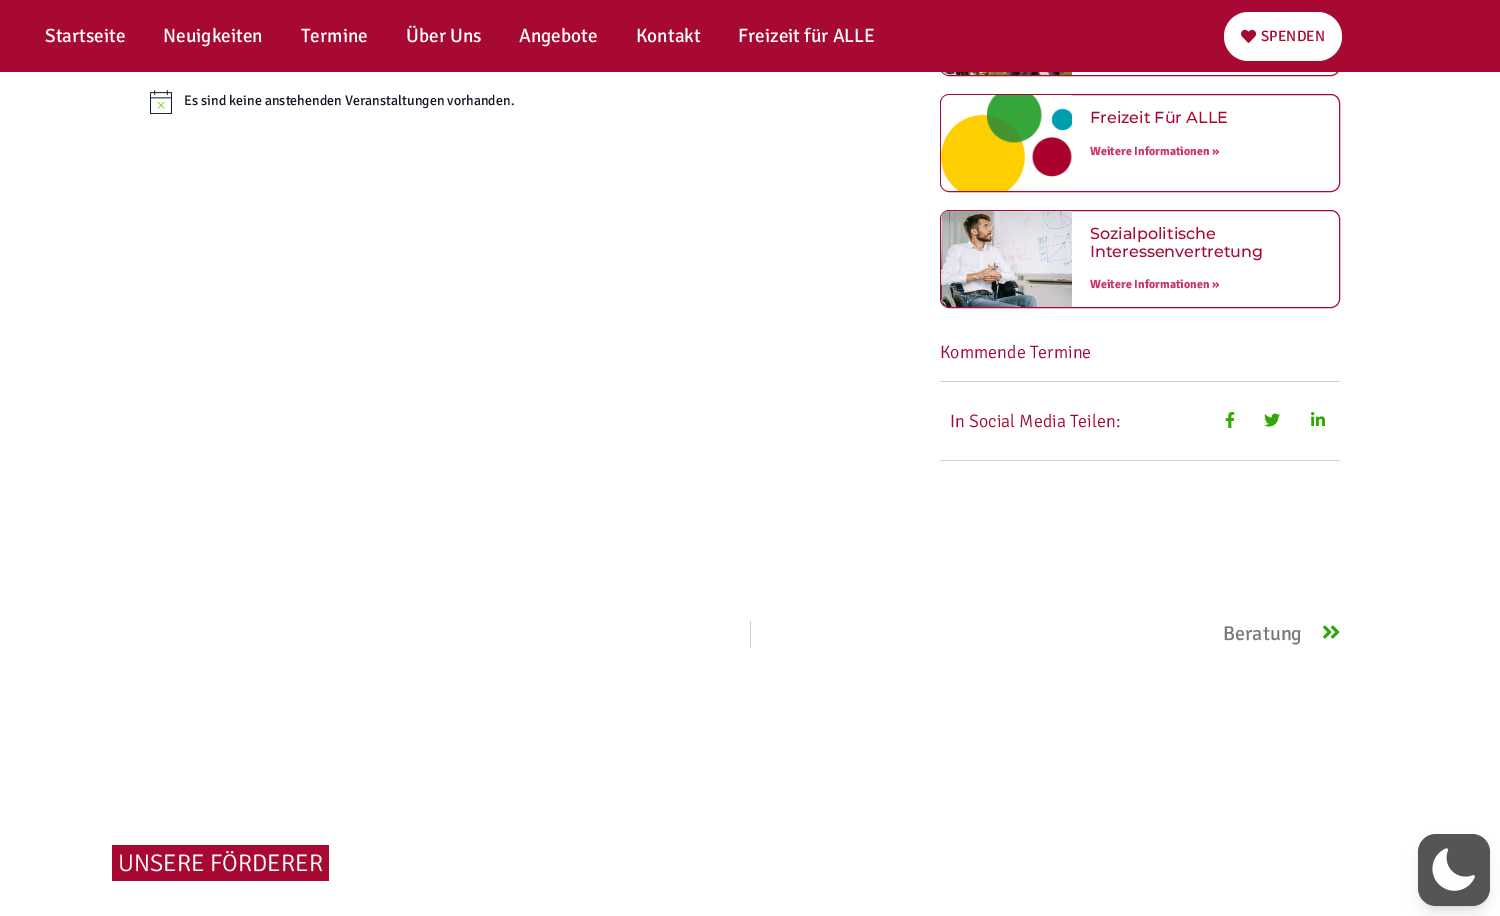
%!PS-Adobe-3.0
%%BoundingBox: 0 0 1500 916
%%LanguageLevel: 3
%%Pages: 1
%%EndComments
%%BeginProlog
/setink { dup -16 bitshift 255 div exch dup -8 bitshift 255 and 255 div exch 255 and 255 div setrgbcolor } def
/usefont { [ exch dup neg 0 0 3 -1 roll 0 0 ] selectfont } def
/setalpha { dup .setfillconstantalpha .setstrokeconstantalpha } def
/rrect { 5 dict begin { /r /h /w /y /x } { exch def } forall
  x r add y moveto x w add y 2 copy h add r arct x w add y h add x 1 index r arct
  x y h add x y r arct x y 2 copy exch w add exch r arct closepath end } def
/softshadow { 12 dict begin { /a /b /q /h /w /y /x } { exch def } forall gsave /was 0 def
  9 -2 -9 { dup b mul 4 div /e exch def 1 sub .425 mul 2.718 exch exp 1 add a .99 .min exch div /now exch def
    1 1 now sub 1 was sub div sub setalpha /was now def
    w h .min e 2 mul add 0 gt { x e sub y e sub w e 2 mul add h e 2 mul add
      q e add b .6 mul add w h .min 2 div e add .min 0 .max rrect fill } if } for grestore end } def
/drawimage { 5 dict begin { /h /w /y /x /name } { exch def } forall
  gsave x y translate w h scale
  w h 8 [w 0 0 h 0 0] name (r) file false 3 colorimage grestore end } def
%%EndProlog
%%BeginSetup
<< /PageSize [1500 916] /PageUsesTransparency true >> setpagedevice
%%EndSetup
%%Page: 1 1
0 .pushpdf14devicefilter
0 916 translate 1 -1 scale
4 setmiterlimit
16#FFFFFF setink
0 0 1500 916 rectfill
16#A70932 setink
940.5 -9.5 399 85 8.5 rrect stroke
0 0 1500 72 rectfill
/Signika-Regular 19.25 usefont
16#FFFFFF setink
[
    [(Startseite) 45 42]
    [(Neuigkeiten) 163 42]
    [(Termine) 301 42]
    [(Über Uns) 406 42]
    [(Angebote) 519 42]
    [(Kontakt) 636 42]
    [(Freizeit für ALLE) 738 42]
] { aload pop moveto show } forall
1224 12 118 49 24.5 rrect fill
(img1.raw) 1241 29 15 14 drawimage
/Signika-Regular 15 usefont
16#A70932 setink
1261 41 moveto (SPENDEN) show
(img2.raw) 150 90 22 24 drawimage
/Signika-Regular 14 usefont
16#141827 setink
184 105 moveto (Es sind keine anstehenden Veranstaltungen vorhanden.) show
(img3.raw) 943 72 129 3 drawimage
16#A70932 setink
940.5 94.5 399 97 8.5 rrect stroke
(img4.raw) 941 95 131 96 drawimage
/Montserrat-Medium 16 usefont
1090 123 moveto (Freizeit Für ALLE) show
/Signika-Bold 12 usefont
16#CC3366 setink
1090 155 moveto (Weitere Informationen ») show
16#A70932 setink
940.5 210.5 399 97 8.5 rrect stroke
(img5.raw) 941 211 131 96 drawimage
/Montserrat-Medium 16 usefont
1090 239 moveto (Sozialpolitische) show
1090 257 moveto (Interessenvertretung) show
/Signika-Bold 12 usefont
16#CC3366 setink
1090 288 moveto (Weitere Informationen ») show
/Signika-Light 18 usefont
16#A70932 setink
940 358 moveto (Kommende Termine) show
16#D0D0D9 setink
940 381 400 1 rectfill
940 460 400 1 rectfill
16#A70932 setink
950 427 moveto (In Social Media Teilen:) show
(img6.raw) 1225 412 10 16 drawimage
(img7.raw) 1264 413 16 14 drawimage
(img8.raw) 1311 412 14 14 drawimage
16#D2D1D8 setink
750 621 1 27 rectfill
/Signika-Regular 20 usefont
16#7A7A7A setink
1223 640 moveto (Beratung) show
(img9.raw) 1323 625 17 14 drawimage
16#A70932 setink
112 845 217 36 rectfill
/Signika-Light 24 usefont
16#FFFFFF setink
118 871 moveto (UNSERE FÖRDERER) show
16#000000 setink
1422 842 64 64 14 3 0.1 softshadow
1421 847 66 66 15 7.5 0.1 softshadow
16#555555 setink
1418 834 72 72 18 rrect fill
(img10.raw) 1432 848 43 43 drawimage
.poppdf14devicefilter showpage
%%EOF
